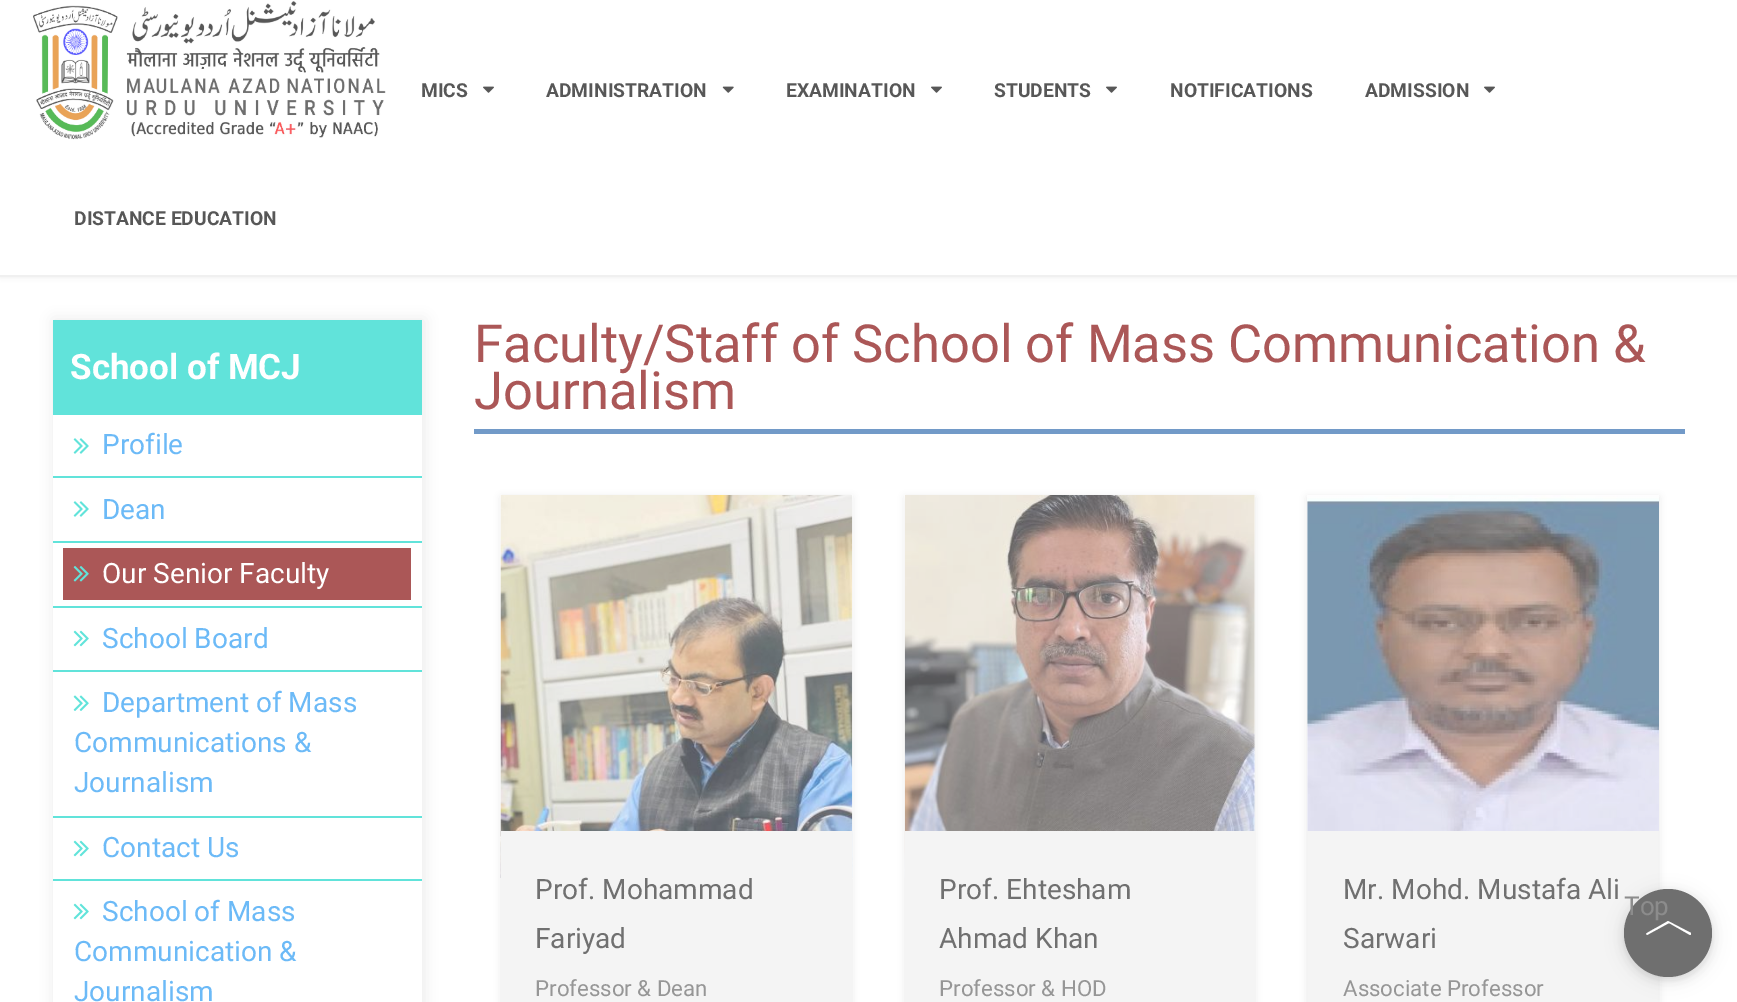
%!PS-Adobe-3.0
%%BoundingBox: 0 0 1737 1002
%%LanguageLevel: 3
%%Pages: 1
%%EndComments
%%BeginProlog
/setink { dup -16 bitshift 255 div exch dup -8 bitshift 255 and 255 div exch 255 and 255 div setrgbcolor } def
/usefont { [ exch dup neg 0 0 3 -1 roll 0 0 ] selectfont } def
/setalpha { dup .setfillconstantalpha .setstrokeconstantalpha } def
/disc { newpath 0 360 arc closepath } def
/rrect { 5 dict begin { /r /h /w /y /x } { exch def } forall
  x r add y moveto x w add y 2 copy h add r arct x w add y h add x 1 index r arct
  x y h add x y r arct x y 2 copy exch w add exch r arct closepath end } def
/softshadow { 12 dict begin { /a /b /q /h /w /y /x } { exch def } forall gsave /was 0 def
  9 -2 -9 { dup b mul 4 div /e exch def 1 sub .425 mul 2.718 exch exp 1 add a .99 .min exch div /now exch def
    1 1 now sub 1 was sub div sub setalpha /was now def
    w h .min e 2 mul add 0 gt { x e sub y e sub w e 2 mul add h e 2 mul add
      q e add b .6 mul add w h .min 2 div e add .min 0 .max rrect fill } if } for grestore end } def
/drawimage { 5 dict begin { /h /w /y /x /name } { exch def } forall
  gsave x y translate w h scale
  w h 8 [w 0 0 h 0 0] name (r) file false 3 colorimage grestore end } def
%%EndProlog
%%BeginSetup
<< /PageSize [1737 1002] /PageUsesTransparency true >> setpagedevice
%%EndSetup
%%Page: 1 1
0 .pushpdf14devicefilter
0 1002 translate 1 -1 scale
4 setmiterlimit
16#FFFFFF setink
0 0 1737 1002 rectfill
16#575757 setink
0 -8 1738 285 0 2.5 0.1 softshadow
16#FFFFFF setink
0 0 1737 275 rectfill
16#F0F0F0 setink
0 275 1737 2 rectfill
(img1.raw) 33 1 387 139 drawimage
/Roboto-Bold 19.25 usefont
16#575757 setink
421 97 moveto (MICS) show
(img2.raw) 483 86 11 7 drawimage
546 97 moveto (ADMINISTRATION) show
(img3.raw) 722 86 12 7 drawimage
786 97 moveto (EXAMINATION) show
(img2.raw) 931 86 11 7 drawimage
994 97 moveto (STUDENTS) show
(img2.raw) 1106 86 11 7 drawimage
1170 97 moveto (NOTIFICATIONS) show
1365 97 moveto (ADMISSION) show
(img2.raw) 1484 86 11 7 drawimage
74 225 moveto (DISTANCE EDUCATION) show
16#EAEAEA setink
54 320 370 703 0 7 1 softshadow
16#61E3DA setink
53 320 369 95 rectfill
/Roboto-Bold 35 usefont
16#FFFFFF setink
70 379 moveto (School of MCJ) show
53 415 369 587 rectfill
16#61E3DA setink
53 476 369 2 rectfill
(img4.raw) 73 438 16 16 drawimage
/Roboto-Regular 28 usefont
16#6CBAF7 setink
102 454 moveto (Profile) show
16#61E3DA setink
53 541 369 2 rectfill
(img4.raw) 73 501 16 16 drawimage
16#6CBAF7 setink
102 519 moveto (Dean) show
16#61E3DA setink
53 606 369 2 rectfill
16#AB5757 setink
63 548 348 52 rectfill
(img5.raw) 73 566 16 16 drawimage
16#FFFFFF setink
102 583 moveto (Our Senior Faculty) show
16#61E3DA setink
53 670 369 2 rectfill
(img6.raw) 73 630 16 17 drawimage
16#6CBAF7 setink
102 648 moveto (School Board) show
16#61E3DA setink
53 816 369 2 rectfill
(img7.raw) 73 695 16 16 drawimage
16#6CBAF7 setink
[
    [(Department of Mass) 102 712]
    [(Communications &) 74 752]
    [(Journalism) 74 792]
] { aload pop moveto show } forall
16#61E3DA setink
53 879 369 2 rectfill
(img6.raw) 73 840 16 17 drawimage
16#6CBAF7 setink
102 857 moveto (Contact Us) show
(img6.raw) 73 903 16 17 drawimage
[
    [(School of Mass) 102 921]
    [(Communication &) 74 961]
    [(Journalism) 74 1001]
] { aload pop moveto show } forall
16#729AC8 setink
474 429 1211 5 rectfill
/Roboto-Regular 52.5 usefont
16#AB5757 setink
474 362 moveto (Faculty/Staff of School of Mass Communication &) show
474 409 moveto (Journalism) show
16#575757 setink
501 497 351 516 0 3.5 0.14 softshadow
(img8.raw) 500 495 353 384 drawimage
16#F4F4F4 setink
501 831 351 171 rectfill
/Roboto-Regular 28 usefont
16#707070 setink
535 899 moveto (Prof. Mohammad) show
535 948 moveto (Fariyad) show
/Roboto-Regular 22.25 usefont
16#969696 setink
535 996 moveto (Professor & Dean) show
16#575757 setink
905 497 350 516 0 3.5 0.14 softshadow
(img9.raw) 904 495 351 383 drawimage
16#F4F4F4 setink
905 831 350 171 rectfill
/Roboto-Regular 28 usefont
16#707070 setink
939 899 moveto (Prof. Ehtesham) show
939 948 moveto (Ahmad Khan) show
/Roboto-Regular 22.25 usefont
16#969696 setink
939 996 moveto (Professor & HOD) show
16#575757 setink
1307 497 352 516 0 3.5 0.14 softshadow
(img10.raw) 1307 495 352 336 drawimage
16#F4F4F4 setink
1308 831 350 171 rectfill
/Roboto-Regular 28 usefont
16#707070 setink
1343 899 moveto (Mr. Mohd. Mustafa Ali) show
1343 948 moveto (Sarwari) show
/Roboto-Regular 22.25 usefont
16#969696 setink
1343 996 moveto (Associate Professor) show
16#575757 setink
1624 893 88 87 43.5 9 0.12 softshadow
1624 893 88 87 43.5 4.5 0.16 softshadow
16#6F6F6F setink
1668 933 44 disc fill
/Roboto-Regular 26 usefont
16#8C8C8C setink
1624 915 moveto (Top) show
16#FFFFFF setink
1690 935 moveto 1669 923 lineto 1647 935 lineto 1646 934 lineto 1646 933 1660 926 1668 921 curveto 1691 933 lineto 1691 934 1691 935 1690 935 curveto closepath fill
.poppdf14devicefilter showpage
%%EOF
